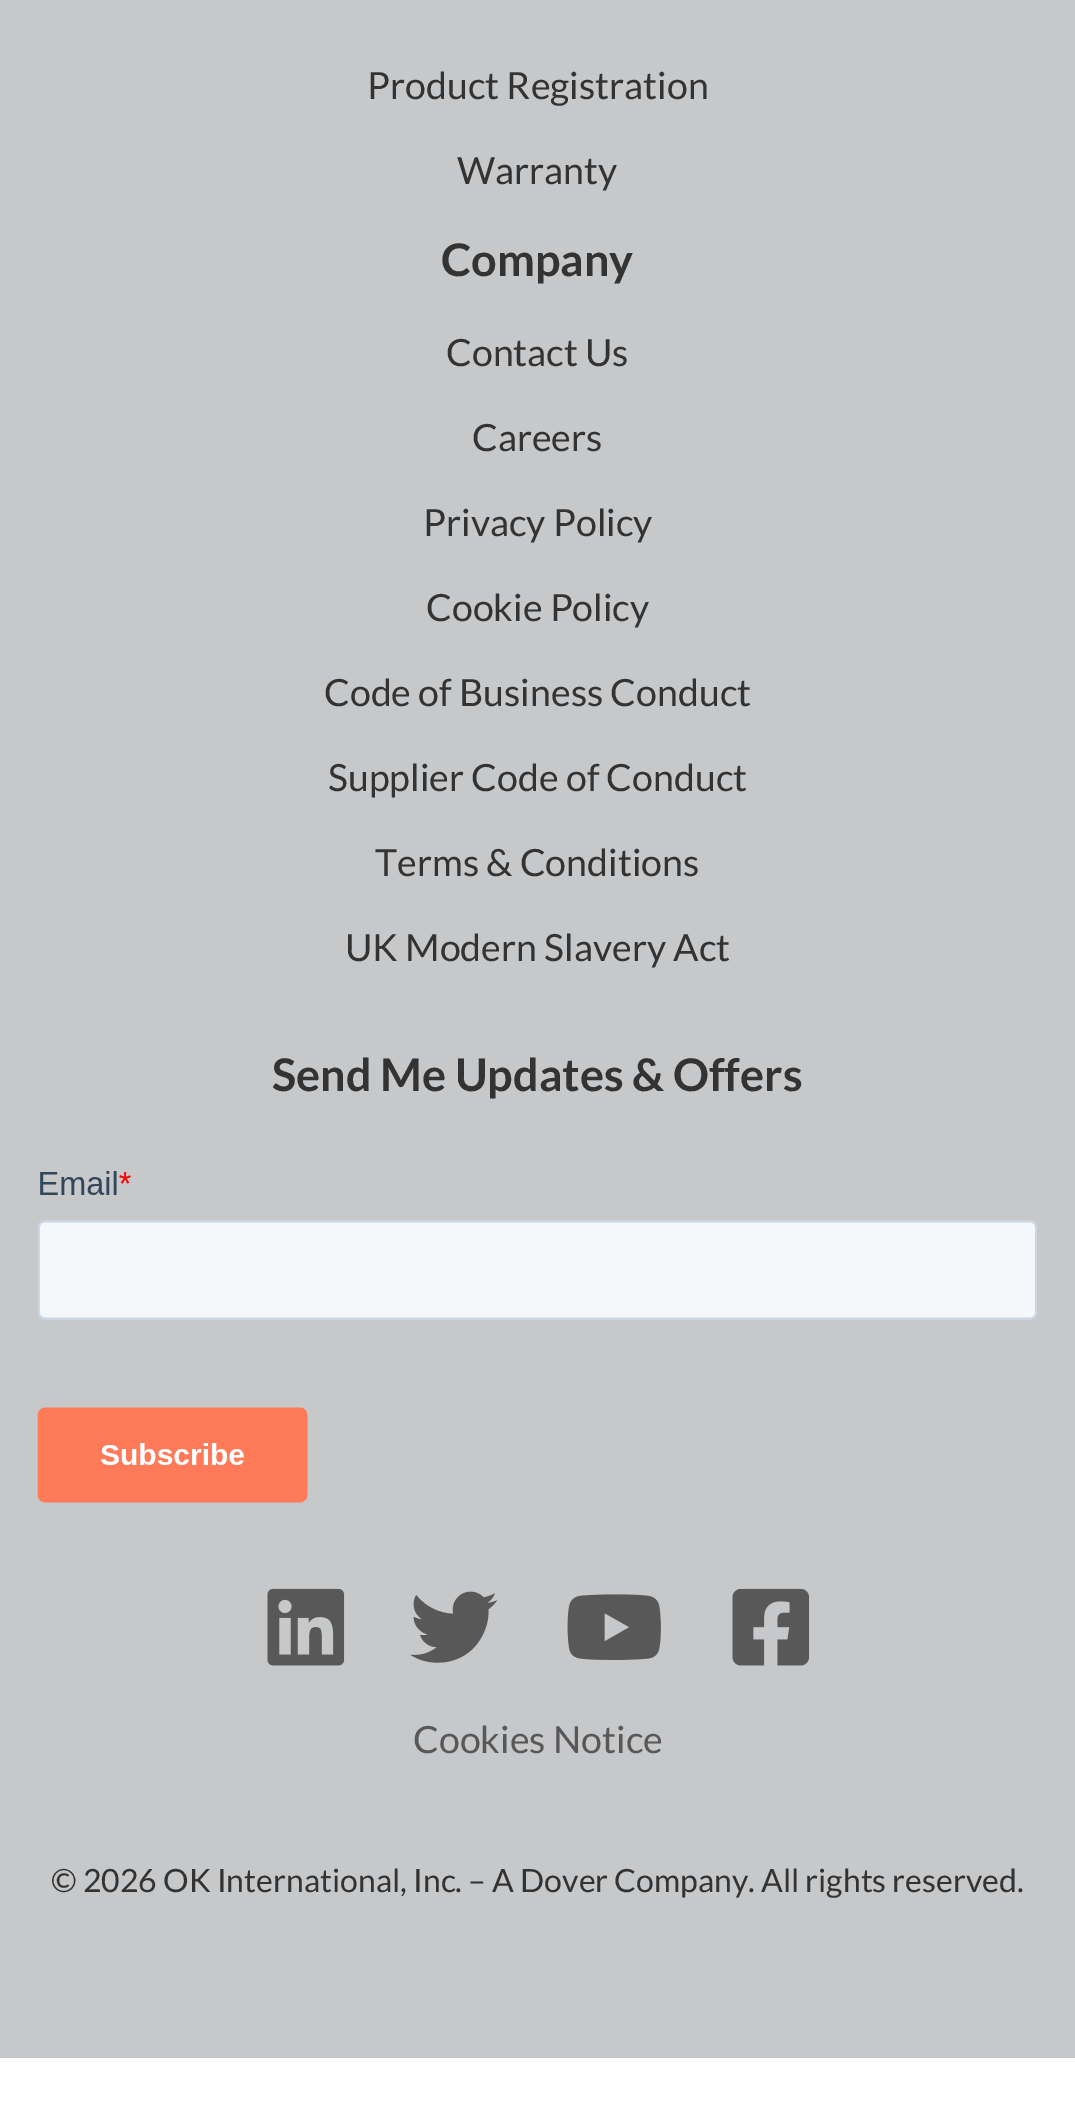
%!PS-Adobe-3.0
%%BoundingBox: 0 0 1075 2122
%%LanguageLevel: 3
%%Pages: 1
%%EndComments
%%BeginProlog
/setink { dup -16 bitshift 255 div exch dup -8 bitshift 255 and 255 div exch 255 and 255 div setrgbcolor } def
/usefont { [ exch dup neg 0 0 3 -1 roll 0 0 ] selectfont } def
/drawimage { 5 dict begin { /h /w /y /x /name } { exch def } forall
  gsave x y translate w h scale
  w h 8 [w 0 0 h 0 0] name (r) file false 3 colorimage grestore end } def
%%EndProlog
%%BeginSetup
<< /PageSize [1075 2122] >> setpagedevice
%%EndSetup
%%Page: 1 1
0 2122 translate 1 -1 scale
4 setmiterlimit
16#FFFFFF setink
0 0 1075 2122 rectfill
16#C7C8CA setink
0 0 1075 2058 rectfill
/Lato-Regular 37.5 usefont
16#333333 setink
367 99 moveto (Product Registration) show
457 184 moveto (Warranty) show
/Lato-Bold 45 usefont
441 276 moveto (Company) show
/Lato-Regular 37.5 usefont
[
    [(Contact Us) 446 366]
    [(Careers) 472 451]
    [(Privacy Policy) 423 536]
    [(Cookie Policy) 426 621]
    [(Code of Business Conduct) 324 706]
    [(Supplier Code of Conduct) 328 791]
    [(Terms & Conditions) 375 876]
    [(UK Modern Slavery Act) 345 961]
] { aload pop moveto show } forall
/Lato-Bold 45 usefont
272 1091 moveto (Send Me Updates & Offers) show
(img1.raw) 37 1171 1001 332 drawimage
(img2.raw) 267 1588 78 78 drawimage
(img3.raw) 410 1591 88 72 drawimage
(img4.raw) 567 1594 94 66 drawimage
(img5.raw) 732 1588 78 78 drawimage
/Lato-Regular 37.5 usefont
16#585859 setink
413 1753 moveto (Cookies Notice) show
/Lato-Regular 32 usefont
16#333333 setink
51 1892 moveto (© 2026 OK International, Inc. – A Dover Company) show
748 1892 moveto (. All rights reserved.) show
showpage
%%EOF
